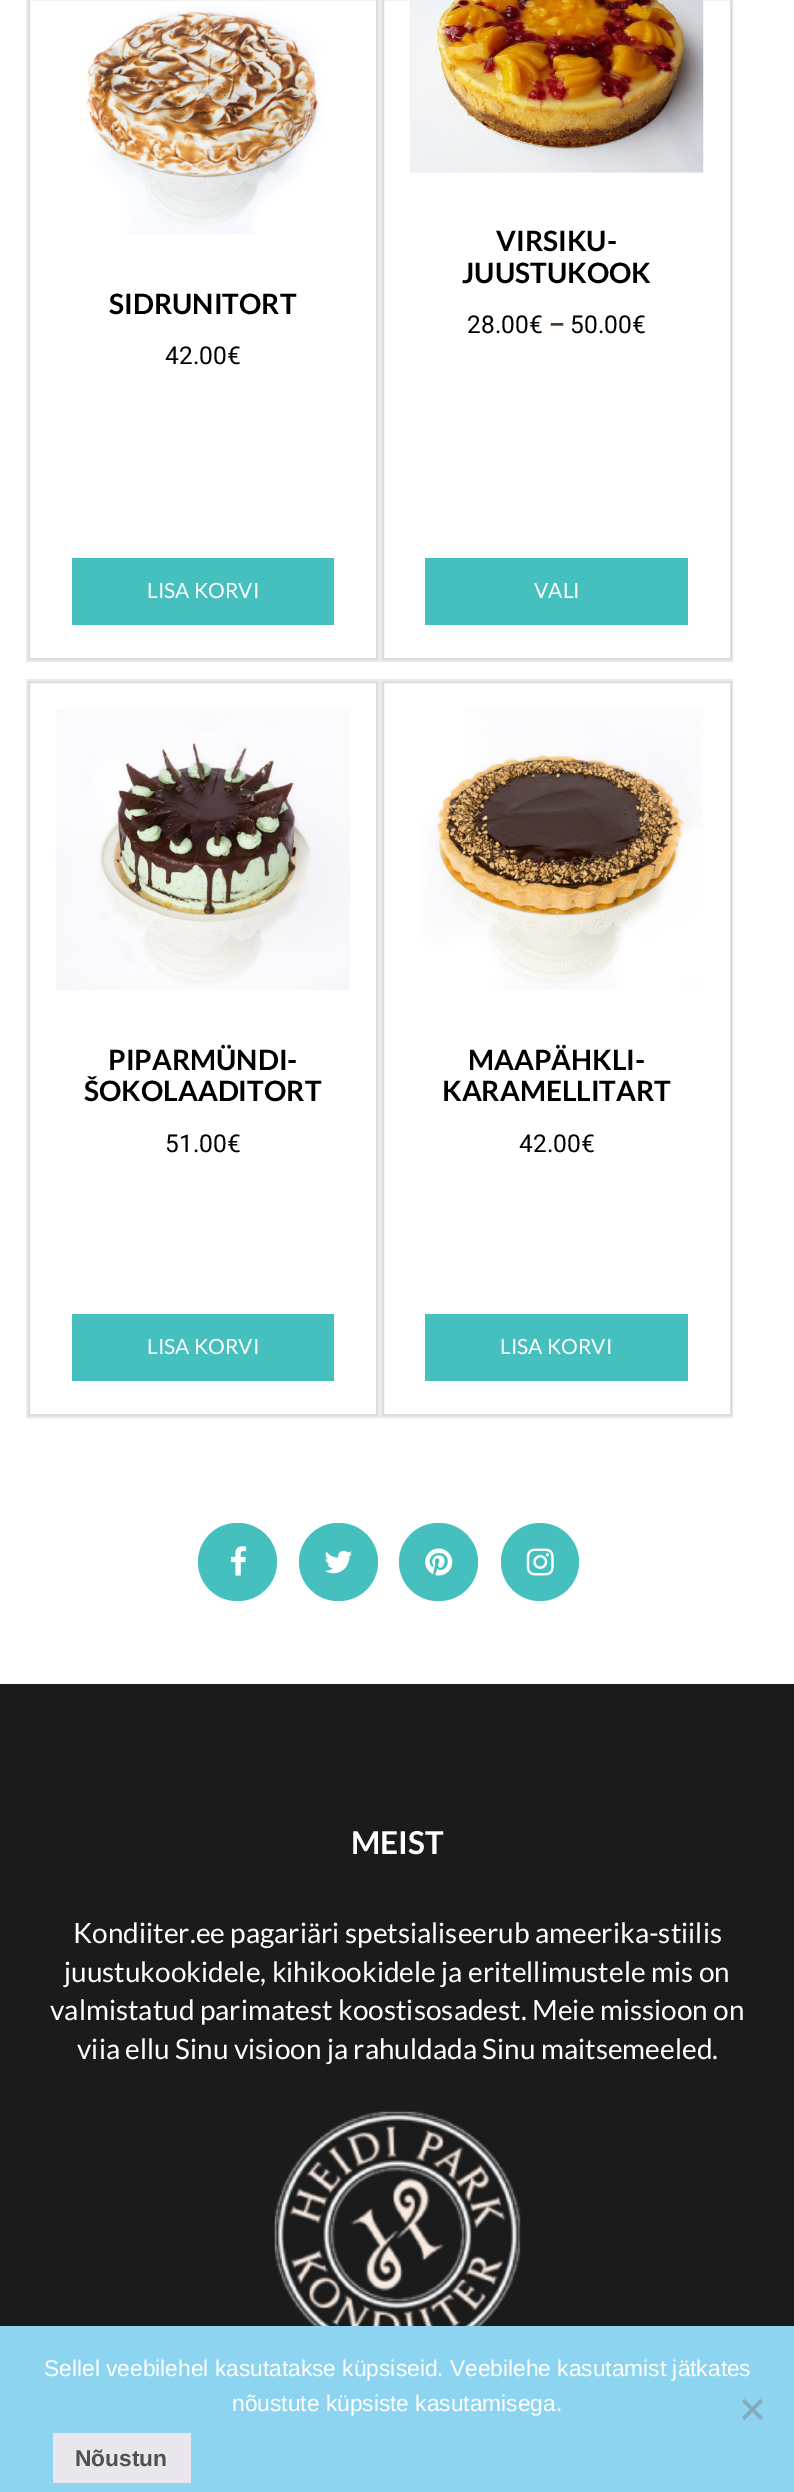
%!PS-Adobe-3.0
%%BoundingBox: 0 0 794 2492
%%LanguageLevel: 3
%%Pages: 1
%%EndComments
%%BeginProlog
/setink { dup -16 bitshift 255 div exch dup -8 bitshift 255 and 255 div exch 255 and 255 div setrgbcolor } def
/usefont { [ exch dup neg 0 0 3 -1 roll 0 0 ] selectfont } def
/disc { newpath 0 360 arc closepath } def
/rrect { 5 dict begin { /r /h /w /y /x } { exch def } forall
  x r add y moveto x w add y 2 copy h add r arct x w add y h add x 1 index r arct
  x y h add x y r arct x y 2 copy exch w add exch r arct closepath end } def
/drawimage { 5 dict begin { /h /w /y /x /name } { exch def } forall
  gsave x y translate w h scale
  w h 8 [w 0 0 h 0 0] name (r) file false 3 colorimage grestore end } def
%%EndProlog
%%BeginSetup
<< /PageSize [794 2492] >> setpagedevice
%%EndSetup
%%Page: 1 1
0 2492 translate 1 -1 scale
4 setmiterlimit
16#FFFFFF setink
0 0 794 2492 rectfill
16#EBEBEB setink
2 setlinewidth
27 -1 352 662 rectstroke
16#DDDDDD setink
29 -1 348 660 rectstroke
(img1.raw) 86 7 239 227 drawimage
/Lato-Bold 28 usefont
16#000000 setink
109 314 moveto (SIDRUNITORT) show
/Roboto-Regular 24.5 usefont
165 364 moveto (42.00€) show
16#45C0BE setink
72 558 262 67 rectfill
/Lato-Regular 21 usefont
16#FFFFFF setink
147 598 moveto (LISA KORVI) show
16#EBEBEB setink
381 -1 351 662 rectstroke
16#DDDDDD setink
383 -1 348 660 rectstroke
(img2.raw) 409 0 295 173 drawimage
/Lato-Bold 28 usefont
16#000000 setink
496 251 moveto (VIRSIKU-) show
462 283 moveto (JUUSTUKOOK) show
/Roboto-Regular 24.5 usefont
467 333 moveto (28.00€) show
/Roboto-Bold 24.5 usefont
16#573920 setink
549 333 moveto (–) show
/Roboto-Regular 24.5 usefont
16#000000 setink
570 333 moveto (50.00€) show
16#45C0BE setink
425 558 263 67 rectfill
/Lato-Regular 21 usefont
16#FFFFFF setink
534 598 moveto (VALI) show
16#EBEBEB setink
27 680 352 737 rectstroke
16#DDDDDD setink
29 682 348 733 rectstroke
(img3.raw) 56 709 294 281 drawimage
/Lato-Bold 28 usefont
16#000000 setink
108 1070 moveto (PIPARMÜNDI-) show
84 1101 moveto (ŠOKOLAADITORT) show
/Roboto-Regular 24.5 usefont
165 1152 moveto (51.00€) show
16#45C0BE setink
72 1314 262 67 rectfill
/Lato-Regular 21 usefont
16#FFFFFF setink
147 1354 moveto (LISA KORVI) show
16#EBEBEB setink
381 680 351 737 rectstroke
16#DDDDDD setink
383 682 348 733 rectstroke
(img4.raw) 420 709 283 281 drawimage
/Lato-Bold 28 usefont
16#000000 setink
468 1070 moveto (MAAPÄHKLI-) show
442 1101 moveto (KARAMELLITART) show
/Roboto-Regular 24.5 usefont
519 1152 moveto (42.00€) show
16#45C0BE setink
425 1314 263 67 rectfill
/Lato-Regular 21 usefont
16#FFFFFF setink
500 1354 moveto (LISA KORVI) show
16#45C0BE setink
198 1523 79 78 39 rrect fill
(img5.raw) 230 1546 17 30 drawimage
299 1523 79 78 39 rrect fill
(img6.raw) 324 1550 29 24 drawimage
399 1523 79 78 39 rrect fill
(img7.raw) 425 1548 28 28 drawimage
540 1562 39 disc fill
(img8.raw) 526 1548 28 28 drawimage
16#1B1B1B setink
0 1684 794 642 rectfill
/Lato-Bold 31.5 usefont
16#FFFFFF setink
351 1854 moveto (MEIST) show
/Lato-Regular 28 usefont
[
    [(Kondiiter.ee pagariäri spetsialiseerub ameerika-stiilis) 73 1943]
    [(juustukookidele, kihikookidele ja eritellimustele mis on) 64 1982]
    [(valmistatud parimatest koostisosadest. Meie missioon on) 50 2020]
    [(viia ellu Sinu visioon ja rahuldada Sinu maitsemeeled.) 77 2059]
] { aload pop moveto show } forall
(img9.raw) 274 2111 247 215 drawimage
16#8CD4F0 setink
0 2326 794 166 rectfill
/LiberationSans-Regular 22.75 usefont
16#FFFFFF setink
44 2376 moveto (Sellel veebilehel kasutatakse küpsiseid. Veebilehe kasutamist jätkates) show
232 2411 moveto (nõustute küpsiste kasutamisega.) show
16#86AAB8 setink
760.5 2399 moveto 763 2401.5 lineto 744.5 2420 lineto 742 2417.5 lineto closepath fill
742 2401.5 moveto 744.5 2399 lineto 763 2417.5 lineto 760.5 2420 lineto closepath fill
16#E9E6ED setink
53 2433 138 50 rectfill
/LiberationSans-Bold 22.75 usefont
16#515151 setink
75 2466 moveto (Nõustun) show
showpage
%%EOF
